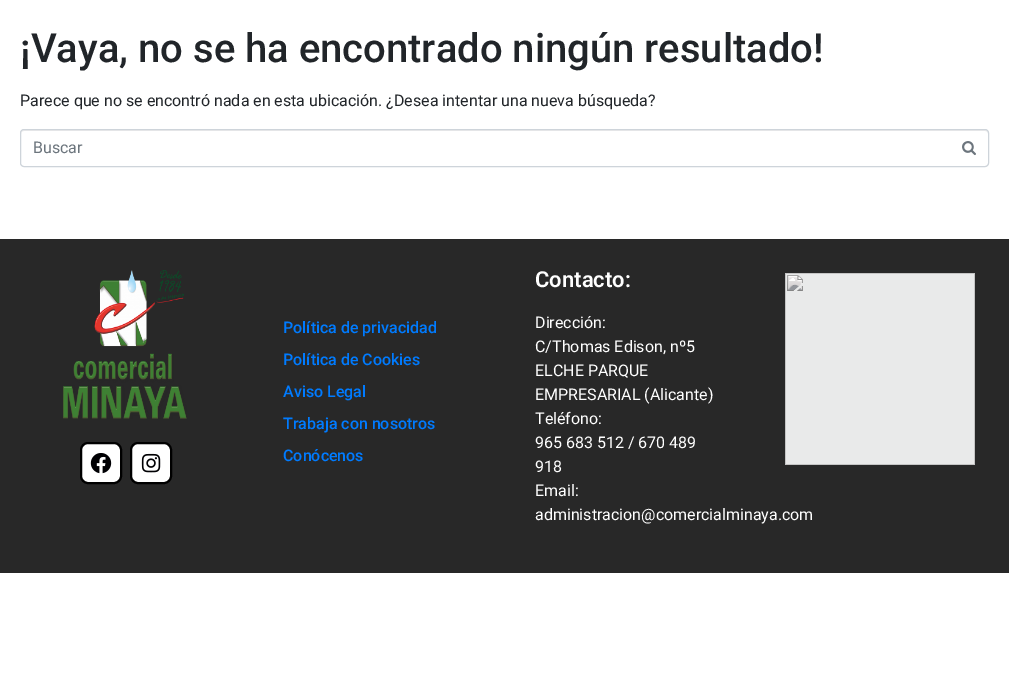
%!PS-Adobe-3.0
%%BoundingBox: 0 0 1009 682
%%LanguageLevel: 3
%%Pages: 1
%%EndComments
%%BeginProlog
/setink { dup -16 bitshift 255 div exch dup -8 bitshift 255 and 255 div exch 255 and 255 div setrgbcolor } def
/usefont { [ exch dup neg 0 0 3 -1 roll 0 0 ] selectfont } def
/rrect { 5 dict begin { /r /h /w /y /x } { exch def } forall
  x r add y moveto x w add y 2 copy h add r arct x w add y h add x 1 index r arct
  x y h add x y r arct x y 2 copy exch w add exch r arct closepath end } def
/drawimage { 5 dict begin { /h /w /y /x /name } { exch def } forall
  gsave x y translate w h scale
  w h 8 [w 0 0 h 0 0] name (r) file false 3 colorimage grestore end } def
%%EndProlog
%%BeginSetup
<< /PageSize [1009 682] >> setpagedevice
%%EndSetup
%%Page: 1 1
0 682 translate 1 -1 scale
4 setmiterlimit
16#FFFFFF setink
0 0 1009 682 rectfill
/Roboto-Medium 40 usefont
16#212529 setink
20 62 moveto (¡Vaya, no se ha encontrado ningún resultado!) show
/Roboto-Regular 16 usefont
20 106 moveto (Parece que no se encontró nada en esta ubicación. ¿Desea intentar una nueva búsqueda?) show
16#ECECEC setink
24 131 moveto 985 131 lineto 987 131 988 132 988 134 curveto 988 132 987 130 985 130 curveto 24 130 lineto 22 130 21 132 21 134 curveto 21 132 22 131 24 131 curveto closepath fill
16#CED4DA setink
20.5 129.5 968 37 3.5 rrect stroke
16#6C757D setink
33 153 moveto (Buscar) show
(img1.raw) 962 141 14 15 drawimage
16#282828 setink
0 239 1009 334 rectfill
(img2.raw) 63 270 124 149 drawimage
16#FFFFFF setink
81 443 40 40 7 rrect gsave fill grestore
16#000000 setink
2 setlinewidth
stroke
(img3.raw) 90 453 22 21 drawimage
16#FFFFFF setink
131 443 40 40 7 rrect gsave fill grestore
16#000000 setink
stroke
(img4.raw) 141 453 20 20 drawimage
/Roboto-Medium 16 usefont
16#007BFF setink
[
    [(Política de privacidad) 283 333]
    [(Política de Cookies) 283 365]
    [(Aviso Legal) 283 397]
    [(Trabaja con nosotros) 283 429]
    [(Conócenos) 283 461]
] { aload pop moveto show } forall
/Roboto-SemiBold 22 usefont
16#FFFFFF setink
535 287 moveto (Contacto:) show
/Roboto-Regular 16 usefont
[
    [(Dirección:) 535 328]
    [(C/Thomas Edison, nº5) 535 352]
    [(ELCHE PARQUE) 535 376]
    [(EMPRESARIAL \(Alicante\)) 535 400]
    [(Teléfono:) 535 424]
    [(965 683 512 / 670 489) 535 448]
    [(918) 535 472]
    [(Email:) 535 496]
    [(administracion@comercialminaya.com) 535 520]
] { aload pop moveto show } forall
(img5.raw) 785 273 190 192 drawimage
showpage
%%EOF
